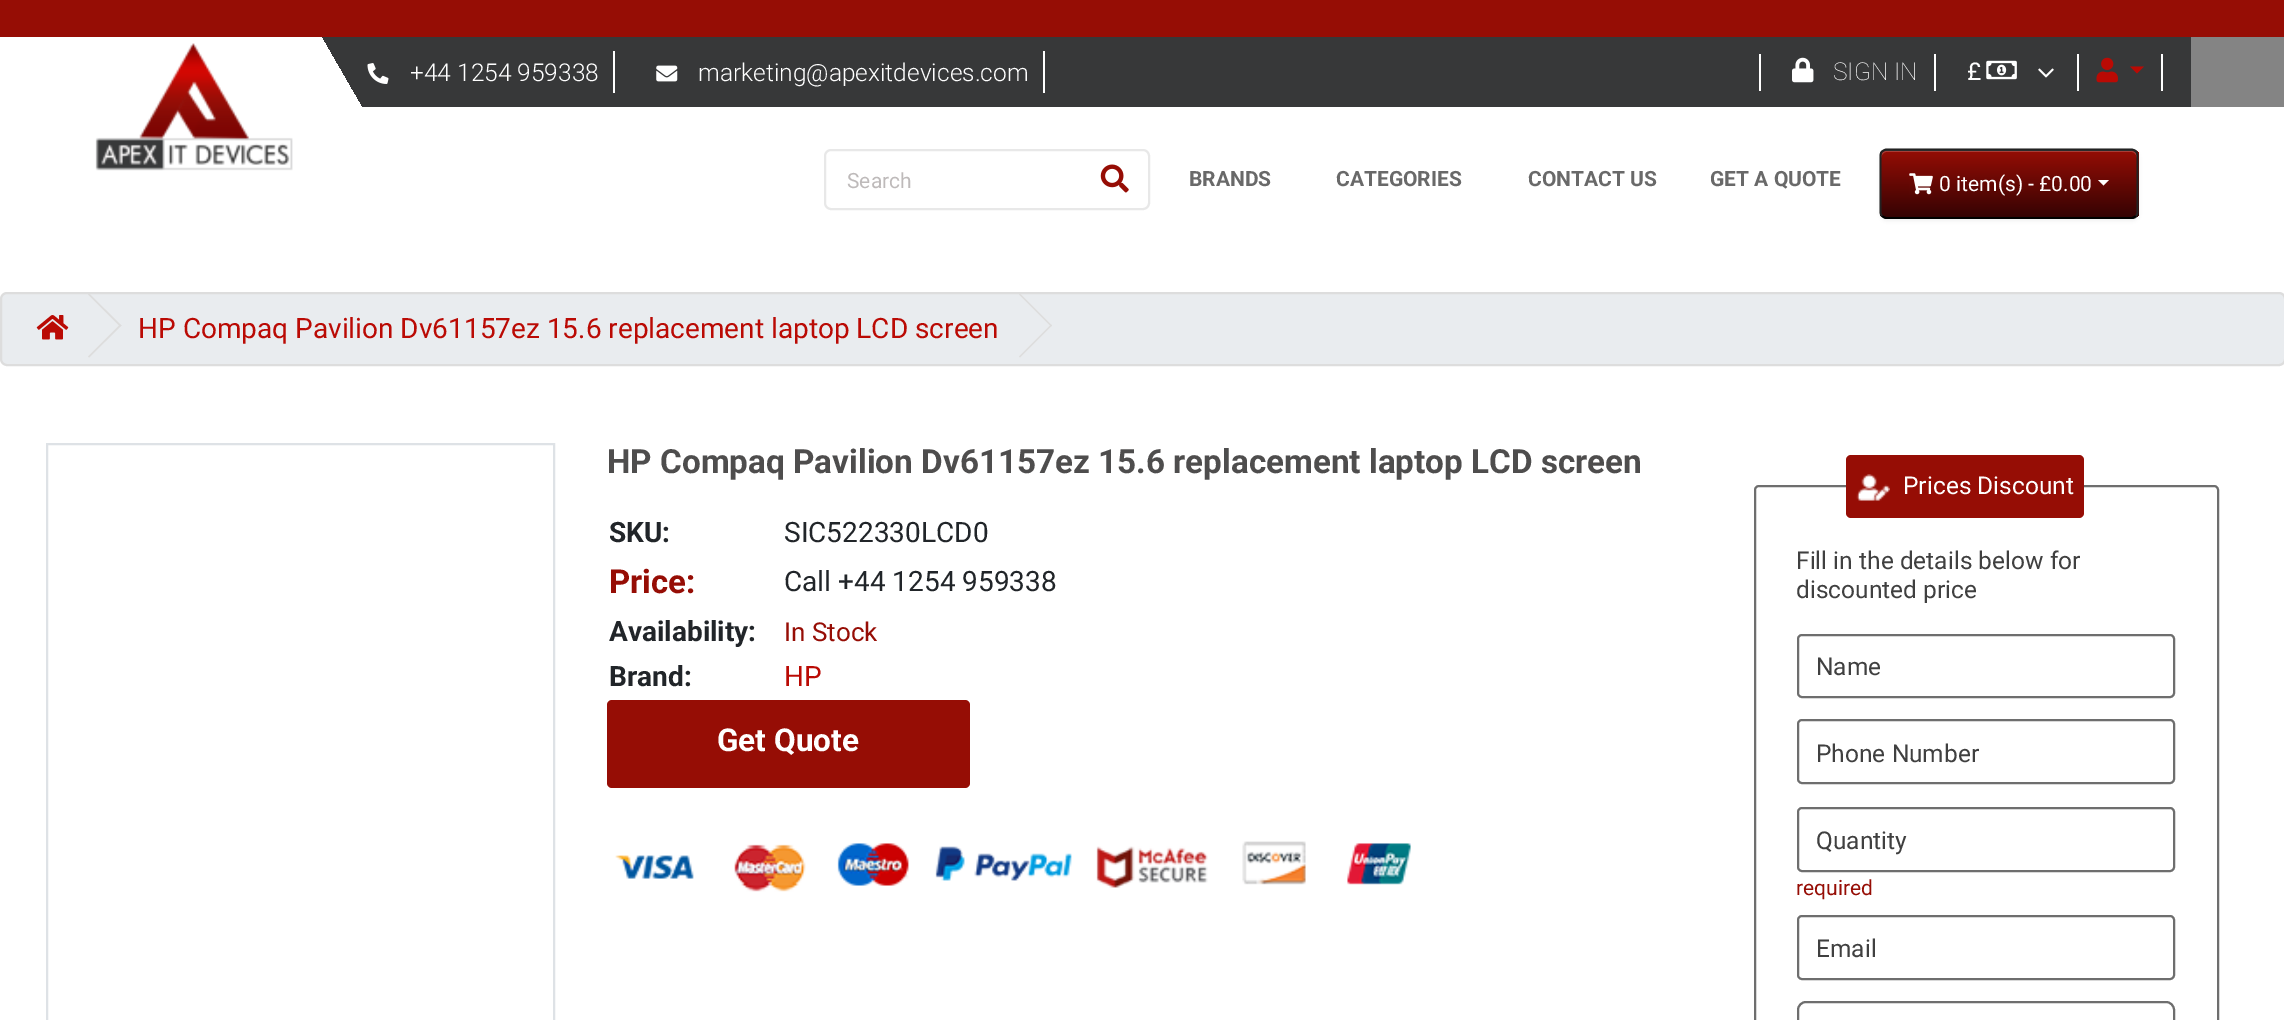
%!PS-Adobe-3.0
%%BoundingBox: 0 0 2284 1020
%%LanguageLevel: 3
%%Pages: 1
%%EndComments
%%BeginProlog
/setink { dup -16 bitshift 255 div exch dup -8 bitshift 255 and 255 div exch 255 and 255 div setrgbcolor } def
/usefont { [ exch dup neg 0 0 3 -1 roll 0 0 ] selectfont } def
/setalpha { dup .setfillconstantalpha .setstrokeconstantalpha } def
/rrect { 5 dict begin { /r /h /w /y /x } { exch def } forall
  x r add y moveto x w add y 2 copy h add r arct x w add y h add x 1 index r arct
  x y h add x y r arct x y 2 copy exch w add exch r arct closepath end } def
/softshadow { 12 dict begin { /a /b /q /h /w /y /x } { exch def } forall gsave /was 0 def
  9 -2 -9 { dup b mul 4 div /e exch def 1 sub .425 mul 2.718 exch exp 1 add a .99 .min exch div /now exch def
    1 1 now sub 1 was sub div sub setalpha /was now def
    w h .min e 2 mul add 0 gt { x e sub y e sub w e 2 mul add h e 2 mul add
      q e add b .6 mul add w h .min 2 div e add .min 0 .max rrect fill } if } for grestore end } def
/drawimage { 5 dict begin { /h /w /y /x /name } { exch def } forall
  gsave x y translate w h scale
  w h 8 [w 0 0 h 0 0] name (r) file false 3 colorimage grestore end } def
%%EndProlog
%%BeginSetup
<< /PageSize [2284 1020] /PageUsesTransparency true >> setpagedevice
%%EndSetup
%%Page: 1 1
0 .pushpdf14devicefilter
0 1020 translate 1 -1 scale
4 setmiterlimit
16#FFFFFF setink
0 0 2284 1020 rectfill
16#960D05 setink
0 0 2284 37 rectfill
16#848484 setink
2191 37 93 70 rectfill
gsave 322 37 moveto 2191 37 lineto 2191 107 lineto 322 107 lineto closepath clip newpath
<< /ShadingType 2 /ColorSpace /DeviceRGB /Coords [1968 -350 507 493] /Extend [true true] /Function << /FunctionType 3 /Domain [0 1] /Functions [<< /FunctionType 2 /Domain [0 1] /C0 [0.216 0.22 0.224] /C1 [0.216 0.22 0.224] /N 1 >> << /FunctionType 2 /Domain [0 1] /C0 [1 1 1] /C1 [1 1 1] /N 1 >>] /Bounds [0.96] /Encode [0 1 0 1] >> >> shfill grestore
16#FFFFFF setink
613 51 2 42 rectfill
(img1.raw) 367 63 22 21 drawimage
/Roboto-Light 24.5 usefont
410 81 moveto (+44 1254 959338) show
1043 51 2 42 rectfill
(img2.raw) 656 65 22 17 drawimage
698 81 moveto (marketing@apexitdevices.com) show
1759 54 2 37 rectfill
1934 54 2 37 rectfill
(img3.raw) 1792 57 22 26 drawimage
/Roboto-Thin 24.5 usefont
1833 80 moveto (SIGN IN) show
2077 54 2 37 rectfill
/Roboto-Regular 24.5 usefont
1967 80 moveto (£) show
(img4.raw) 1986 60 31 20 drawimage
(img5.raw) 2038 68 16 10 drawimage
2161 54 2 37 rectfill
(img6.raw) 2096 57 22 26 drawimage
16#BA0A04 setink
2130 66.5 moveto 2144 66.5 lineto 2137 73.5 lineto closepath fill
(img7.raw) 95 43 198 128 drawimage
16#E8E8E8 setink
2 setlinewidth
825 150 324 59 6 rrect stroke
/Roboto-Regular 21 usefont
16#BEBABA setink
847 188 moveto (Search) show
(img8.raw) 1100 164 29 29 drawimage
/Roboto-Bold 21 usefont
16#696969 setink
[
    [(BRANDS) 1189 186]
    [(CATEGORIES) 1336 186]
    [(CONTACT US) 1528 186]
    [(GET A QUOTE) 1710 186]
] { aload pop moveto show } forall
16#000000 setink
1880 151 259 70 7 2 0.05 softshadow
16#363636 setink
1880 149 259 70 7 rrect fill
gsave
1880 149 259 70 7 rrect clip newpath
gsave 1880 151 moveto 2139 151 lineto 2139 217 lineto 1880 217 lineto closepath clip newpath
<< /ShadingType 2 /ColorSpace /DeviceRGB /Coords [2009 150 2009 217] /Extend [true true] /Function << /FunctionType 2 /Domain [0 1] /C0 [0.588 0.051 0.02] /C1 [0.208 0.012 0.012] /N 1 >> >> shfill grestore
grestore
0.2 setalpha
16#FFFFFF setink
1886 152 moveto 2132 152 lineto 2134 152 2137 155 2137 158 curveto 2137 155 2136 151 2132 151 curveto 1886 151 lineto 1882 151 1881 155 1881 158 curveto 1881 155 1884 152 1886 152 curveto closepath fill
1 setalpha
16#000000 setink
1.8 setlinewidth
2136 216 moveto 2134.5 217 2133 218 2131.5 218 curveto 1886.5 218 lineto 1885 218 1883.5 217 1882 216 curveto stroke
16#222222 setink
1882 216 moveto 1881 215 1880.5 213.5 1880.5 212 curveto 1880.5 156 lineto 1880.5 154 1881 152.5 1882 151.5 curveto 1883.5 150.5 1885 149.5 1886.5 149.5 curveto 2131.5 149.5 lineto 2133 149.5 2134.5 150.5 2136 151.5 curveto 2137 152.5 2137.5 154 2137.5 156 curveto 2137.5 212 lineto 2137.5 213.5 2137 215 2136 216 curveto stroke
(img9.raw) 1909 173 24 22 drawimage
/Roboto-Regular 21 usefont
16#FFFFFF setink
1939 191 moveto (0 item\(s\) - £0.00) show
2098 180 moveto 2109 180 lineto 2103.5 185.5 lineto closepath fill
16#E9ECEF setink
1 293 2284 72 6 rrect gsave fill grestore
16#DDDDDD setink
2 setlinewidth
stroke
(img10.raw) 36 315 33 25 drawimage
88 294.5 moveto 89 293.5 lineto 121.5 325.5 lineto 120 326.5 lineto closepath fill
88 356.5 moveto 120 324.5 lineto 121.5 325.5 lineto 89 357.5 lineto closepath fill
/Roboto-Regular 28 usefont
16#BA0A04 setink
138 338 moveto (HP Compaq Pavilion Dv61157ez 15.6 replacement laptop LCD screen) show
16#DDDDDD setink
1019 294.5 moveto 1020 293.5 lineto 1052 325.5 lineto 1051 326.5 lineto closepath fill
1019 356.5 moveto 1051 324.5 lineto 1052 325.5 lineto 1020 357.5 lineto closepath fill
16#DEE2E6 setink
47 444 507 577 rectstroke
/Roboto-Bold 33.25 usefont
16#4E4D4D setink
607 473 moveto (HP Compaq Pavilion Dv61157ez 15.6 replacement laptop LCD screen) show
/Roboto-Bold 28 usefont
16#212529 setink
609 542 moveto (SKU:) show
/Roboto-Regular 28 usefont
784 542 moveto (SIC522330LCD0) show
/Roboto-Bold 33 usefont
16#960D05 setink
609 593 moveto (Price:) show
/Roboto-Regular 28 usefont
16#212529 setink
784 591 moveto (Call +44 1254 959338) show
/Roboto-Bold 28 usefont
609 641 moveto (Availability:) show
/Roboto-Regular 26 usefont
16#960D05 setink
784 641 moveto (In Stock) show
/Roboto-Bold 28 usefont
16#212529 setink
609 686 moveto (Brand:) show
/Roboto-Regular 28 usefont
16#BA0A04 setink
784 686 moveto (HP) show
16#960D05 setink
607 700 363 88 5 rrect fill
/Roboto-Bold 31.5 usefont
16#FFFFFF setink
717 751 moveto (Get Quote) show
(img11.raw) 615 855 79 24 drawimage
(img12.raw) 734 844 72 48 drawimage
(img13.raw) 837 843 72 43 drawimage
(img14.raw) 935 846 137 35 drawimage
(img15.raw) 1096 846 112 42 drawimage
(img16.raw) 1242 841 64 44 drawimage
(img17.raw) 1347 843 64 42 drawimage
16#6E6E6E setink
1755 486 463 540 4 rrect stroke
16#960D05 setink
1846 455 238 63 5 rrect fill
(img18.raw) 1856 474 34 27 drawimage
/Roboto-Regular 24.5 usefont
16#FFFFFF setink
1903 494 moveto (Prices Discount) show
16#404040 setink
1796 569 moveto (Fill in the details below for) show
1796 598 moveto (discounted price) show
16#6E6E6E setink
1798 635 376 62 4 rrect stroke
16#404040 setink
1816 675 moveto (Name) show
16#6E6E6E setink
1798 720 376 63 4 rrect stroke
16#404040 setink
1816 762 moveto (Phone Number) show
16#6E6E6E setink
1798 808 376 63 4 rrect stroke
16#404040 setink
1816 849 moveto (Quantity) show
/Roboto-Regular 21 usefont
16#960D05 setink
1796 895 moveto (required) show
16#6E6E6E setink
1798 916 376 63 4 rrect stroke
/Roboto-Regular 24.5 usefont
16#404040 setink
1816 957 moveto (Email) show
16#6E6E6E setink
1798 1002 376 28 8 rrect stroke
.poppdf14devicefilter showpage
%%EOF
